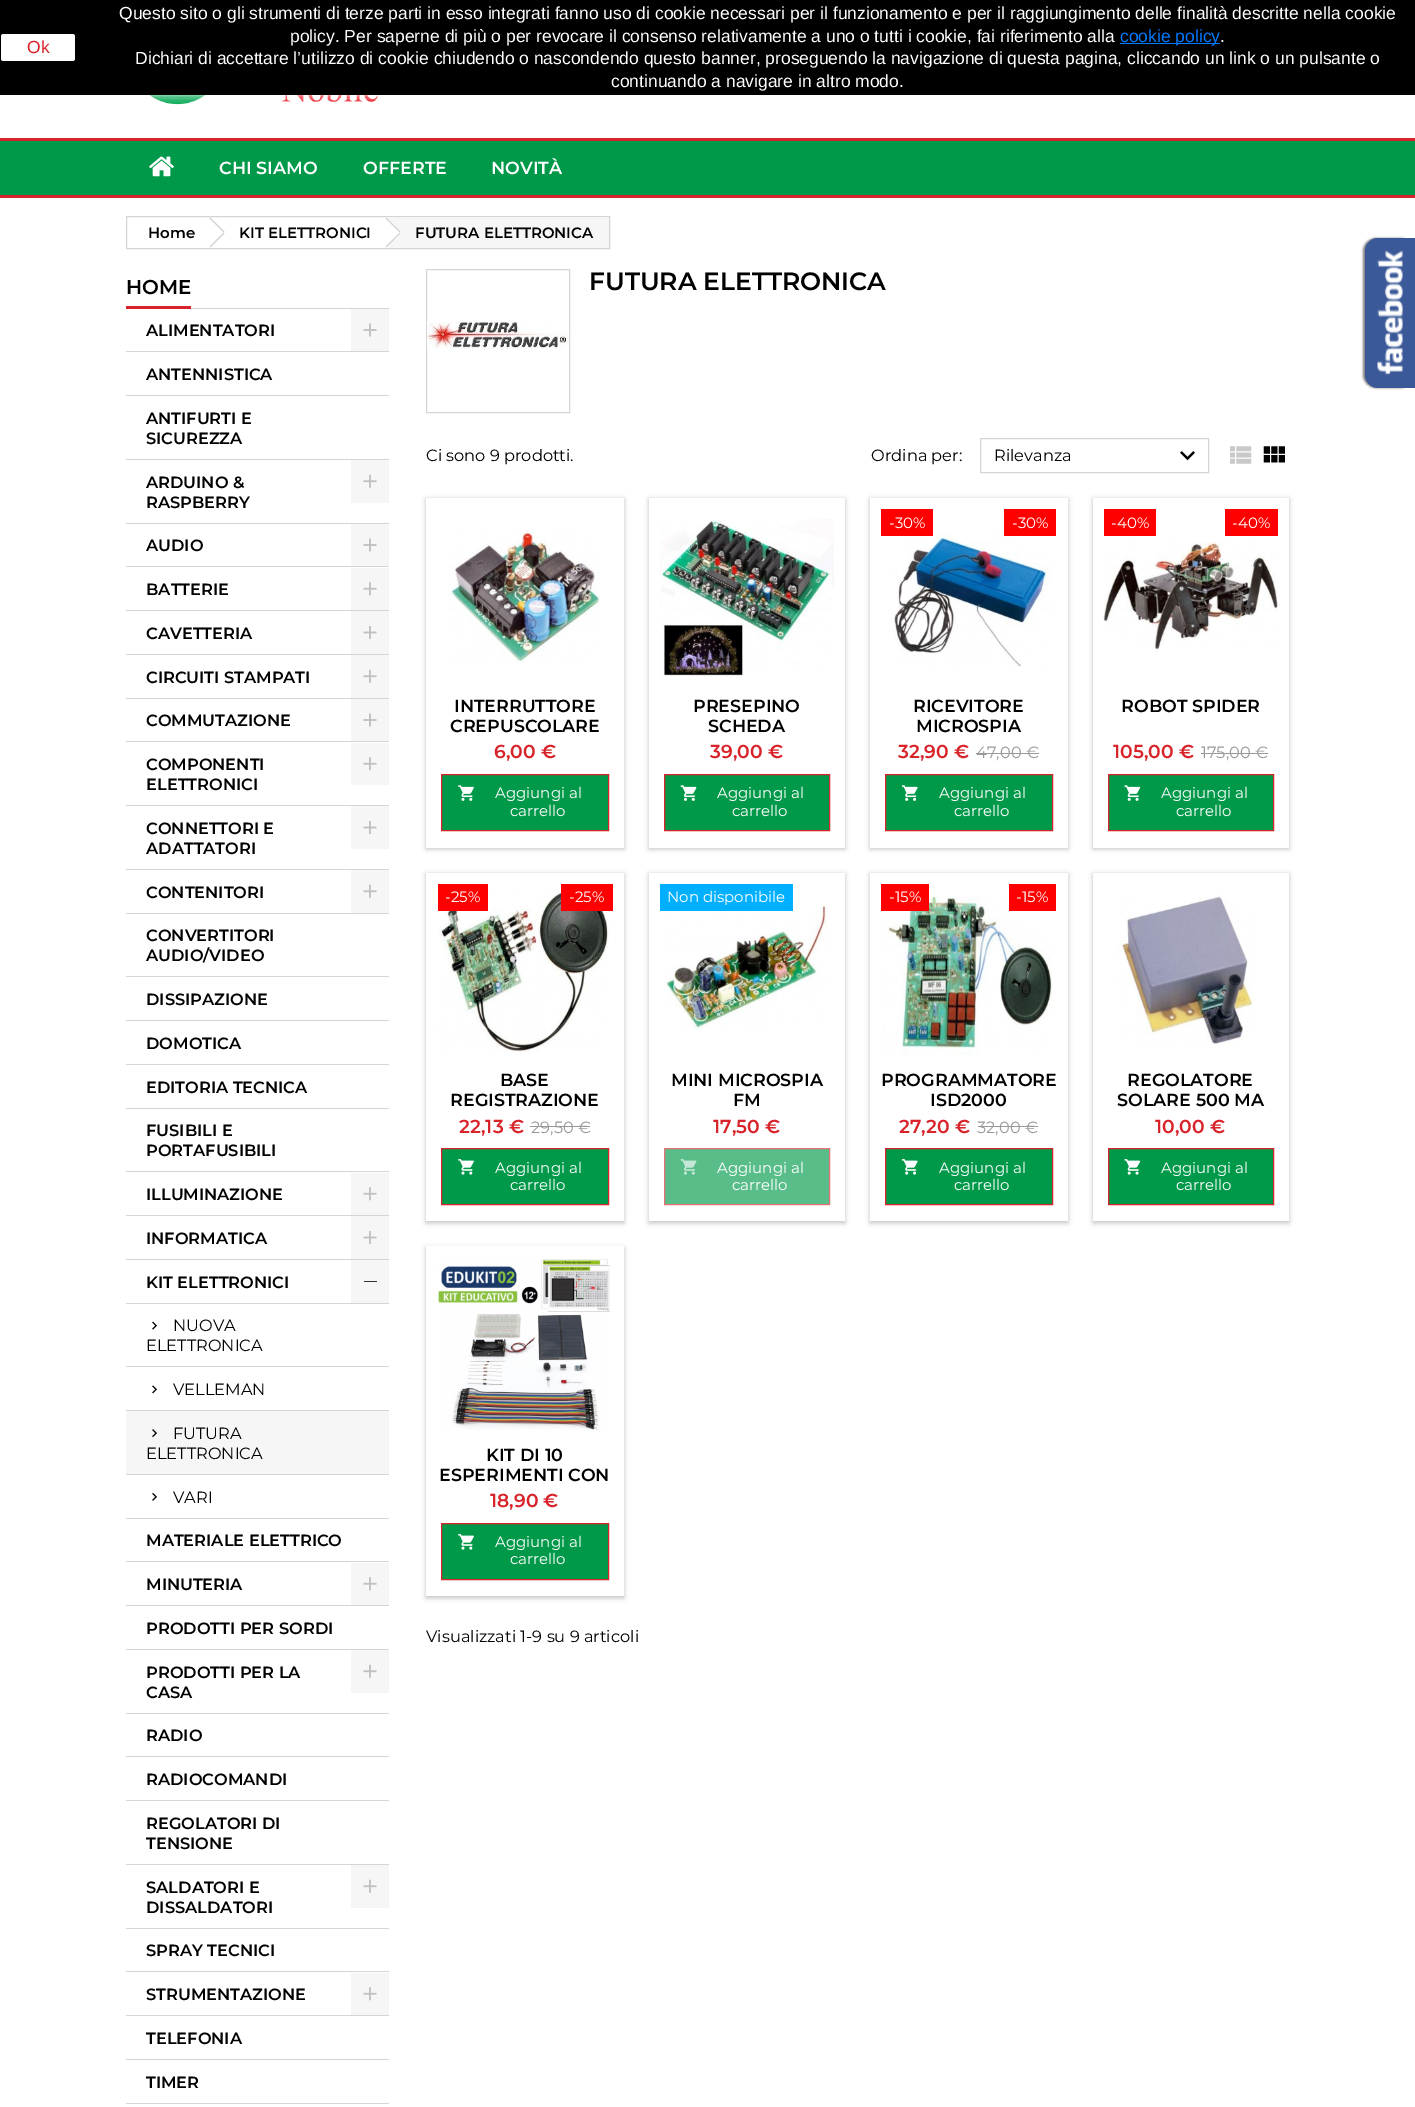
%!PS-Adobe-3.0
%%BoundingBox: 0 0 1415 2107
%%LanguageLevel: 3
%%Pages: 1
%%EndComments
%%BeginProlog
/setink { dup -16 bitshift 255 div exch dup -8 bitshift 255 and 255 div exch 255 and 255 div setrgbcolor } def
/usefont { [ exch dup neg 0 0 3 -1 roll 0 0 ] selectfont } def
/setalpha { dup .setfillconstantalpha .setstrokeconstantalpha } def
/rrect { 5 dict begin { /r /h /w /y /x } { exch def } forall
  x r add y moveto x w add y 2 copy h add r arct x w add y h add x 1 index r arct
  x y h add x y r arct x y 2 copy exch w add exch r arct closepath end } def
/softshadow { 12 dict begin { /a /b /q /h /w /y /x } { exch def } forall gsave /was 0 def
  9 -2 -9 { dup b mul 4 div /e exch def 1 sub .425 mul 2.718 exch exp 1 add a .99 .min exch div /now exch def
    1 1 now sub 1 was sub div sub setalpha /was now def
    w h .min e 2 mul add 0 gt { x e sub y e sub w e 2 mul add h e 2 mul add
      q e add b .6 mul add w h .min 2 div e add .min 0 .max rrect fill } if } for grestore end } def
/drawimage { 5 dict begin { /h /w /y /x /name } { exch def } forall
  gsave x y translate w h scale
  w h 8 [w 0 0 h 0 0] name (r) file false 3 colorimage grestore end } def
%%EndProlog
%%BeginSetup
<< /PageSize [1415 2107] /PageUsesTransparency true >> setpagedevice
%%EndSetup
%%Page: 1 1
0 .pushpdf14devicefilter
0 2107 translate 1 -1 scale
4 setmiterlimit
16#FFFFFF setink
0 0 1415 2107 rectfill
(img1.raw) 130 95 250 10 drawimage
0 0 1415 95 0 6 1 softshadow
16#000000 setink
0 0 1415 95 rectfill
16#FFFFFF setink
1 34 74 27 2.5 rrect fill
/LiberationSans-Regular 17.5 usefont
16#D8232A setink
27 53 moveto (Ok) show
16#FFFFFF setink
119 19 moveto (Questo sito o gli strumenti di terze parti in esso integrati fanno uso di cookie necessari per il funzionamento e per il raggiungimento delle finalità descritte nella cookie) show
290 42 moveto (policy. Per saperne di più o per revocare il consenso relativamente a uno o tutti i cookie, fai riferimento alla) show
16#007AFF setink
1120 43 100 1 rectfill
1120 42 moveto (cookie policy) show
16#FFFFFF setink
[
    [(.) 1220 42]
    [(Dichiari di accettare l’utilizzo di cookie chiudendo o nascondendo questo banner, proseguendo la navigazione di questa pagina, cliccando un link o un pulsante o) 135 64]
    [(continuando a navigare in altro modo.) 611 87]
] { aload pop moveto show } forall
[
    [0 141 1415 54 16#009949]
    [0 138 1415 3 16#D8232A]
    [0 195 1415 3 16#D8232A]
] { aload pop setink rectfill } forall
(img2.raw) 149 156 25 21 drawimage
/Montserrat-SemiBold 17.5 usefont
16#FFFFFF setink
[
    [(CHI SIAMO) 219 174]
    [(OFFERTE) 363 174]
    [(NOVITÀ) 491 174]
] { aload pop moveto show } forall
16#D6D4D4 setink
126.5 216.5 483 32 rectstroke
/Montserrat-SemiBold 15 usefont
16#000000 setink
148 238 moveto (Home) show
16#D6D4D4 setink
210.5 217.5 moveto 224.5 231.5 lineto 223.5 232.5 lineto 209.5 218.5 lineto closepath fill
223.5 232.5 moveto 224.5 233.5 lineto 210.5 247.5 lineto 209.5 246.5 lineto closepath fill
16#000000 setink
239 238 moveto (KIT ELETTRONICI) show
16#F6F6F6 setink
388 218 221 30 rectfill
16#FFFFFF setink
387.5 218.5 moveto 400 230.5 lineto 401 231.5 401 233.5 400 234.5 curveto 387.5 246.5 lineto 386.5 247.5 385 247.5 384 246.5 curveto 371.5 234.5 lineto 370.5 233.5 370.5 231.5 371.5 230.5 curveto 384 218.5 lineto 385 217.5 386.5 217.5 387.5 218.5 curveto closepath fill
16#D6D4D4 setink
386.5 217.5 moveto 400.5 231.5 lineto 400 232.5 lineto 385.5 218.5 lineto closepath fill
400 232.5 moveto 400.5 233.5 lineto 386.5 247.5 lineto 385.5 246.5 lineto closepath fill
16#000000 setink
415 238 moveto (FUTURA ELETTRONICA) show
16#D6D4D4 setink
191 308 198 1 rectfill
16#D8232A setink
126 306 65 3 rectfill
/Montserrat-SemiBold 20 usefont
16#000000 setink
126 294 moveto (HOME) show
16#D6D4D4 setink
126 351 263 1 rectfill
/Montserrat-SemiBold 16.25 usefont
16#000000 setink
146 336 moveto (ALIMENTATORI) show
16#F6F6F6 setink
351 309 38 42 rectfill
(img3.raw) 363 323 14 14 drawimage
16#D6D4D4 setink
126 395 263 1 rectfill
16#000000 setink
146 380 moveto (ANTENNISTICA) show
16#D6D4D4 setink
126 459 263 1 rectfill
16#000000 setink
146 424 moveto (ANTIFURTI E) show
146 444 moveto (SICUREZZA) show
16#D6D4D4 setink
126 523 263 1 rectfill
16#000000 setink
146 488 moveto (ARDUINO &) show
146 508 moveto (RASPBERRY) show
16#F6F6F6 setink
351 460 38 43 rectfill
(img4.raw) 363 474 14 14 drawimage
16#D6D4D4 setink
126 566 263 1 rectfill
16#000000 setink
146 551 moveto (AUDIO) show
16#F6F6F6 setink
351 524 38 42 rectfill
(img3.raw) 363 538 14 14 drawimage
16#D6D4D4 setink
126 610 263 1 rectfill
16#000000 setink
146 595 moveto (BATTERIE) show
16#F6F6F6 setink
351 568 38 42 rectfill
(img5.raw) 363 582 14 14 drawimage
16#D6D4D4 setink
126 654 263 1 rectfill
16#000000 setink
146 639 moveto (CAVETTERIA) show
16#F6F6F6 setink
351 611 38 43 rectfill
(img6.raw) 363 626 14 13 drawimage
16#D6D4D4 setink
126 698 263 1 rectfill
16#000000 setink
146 683 moveto (CIRCUITI STAMPATI) show
16#F6F6F6 setink
351 655 38 43 rectfill
(img4.raw) 363 669 14 14 drawimage
16#D6D4D4 setink
126 741 263 1 rectfill
16#000000 setink
146 726 moveto (COMMUTAZIONE) show
16#F6F6F6 setink
351 699 38 42 rectfill
(img3.raw) 363 713 14 14 drawimage
16#D6D4D4 setink
126 805 263 1 rectfill
16#000000 setink
146 770 moveto (COMPONENTI) show
146 790 moveto (ELETTRONICI) show
16#F6F6F6 setink
351 743 38 42 rectfill
(img5.raw) 363 757 14 14 drawimage
16#D6D4D4 setink
126 869 263 1 rectfill
16#000000 setink
146 834 moveto (CONNETTORI E) show
146 854 moveto (ADATTATORI) show
16#F6F6F6 setink
351 806 38 43 rectfill
(img6.raw) 363 821 14 13 drawimage
16#D6D4D4 setink
126 913 263 1 rectfill
16#000000 setink
146 898 moveto (CONTENITORI) show
16#F6F6F6 setink
351 870 38 43 rectfill
(img4.raw) 363 884 14 14 drawimage
16#D6D4D4 setink
126 976 263 1 rectfill
16#000000 setink
146 941 moveto (CONVERTITORI) show
146 961 moveto (AUDIO/VIDEO) show
16#D6D4D4 setink
126 1020 263 1 rectfill
16#000000 setink
146 1005 moveto (DISSIPAZIONE) show
16#D6D4D4 setink
126 1064 263 1 rectfill
16#000000 setink
146 1049 moveto (DOMOTICA) show
16#D6D4D4 setink
126 1108 263 1 rectfill
16#000000 setink
146 1093 moveto (EDITORIA TECNICA) show
16#D6D4D4 setink
126 1171 263 1 rectfill
16#000000 setink
146 1136 moveto (FUSIBILI E) show
146 1156 moveto (PORTAFUSIBILI) show
16#D6D4D4 setink
126 1215 263 1 rectfill
16#000000 setink
146 1200 moveto (ILLUMINAZIONE) show
16#F6F6F6 setink
351 1173 38 42 rectfill
(img5.raw) 363 1187 14 14 drawimage
16#D6D4D4 setink
126 1259 263 1 rectfill
16#000000 setink
146 1244 moveto (INFORMATICA) show
16#F6F6F6 setink
351 1216 38 43 rectfill
(img6.raw) 363 1231 14 13 drawimage
16#D6D4D4 setink
126 1303 263 1 rectfill
16#000000 setink
146 1288 moveto (KIT ELETTRONICI) show
[
    [351 1260 38 43 16#F6F6F6]
    [364 1281 13 1 16#333333]
    [126 1366 263 1 16#D6D4D4]
] { aload pop setink rectfill } forall
(img7.raw) 152 1321 5 9 drawimage
/Montserrat-Regular 16.25 usefont
16#000000 setink
173 1331 moveto (NUOVA) show
146 1351 moveto (ELETTRONICA) show
16#D6D4D4 setink
126 1410 263 1 rectfill
(img8.raw) 152 1385 5 9 drawimage
16#000000 setink
173 1395 moveto (VELLEMAN) show
16#F6F6F6 setink
126 1411 263 63 rectfill
16#D6D4D4 setink
126 1474 263 1 rectfill
(img9.raw) 152 1429 5 8 drawimage
16#000000 setink
173 1439 moveto (FUTURA) show
146 1459 moveto (ELETTRONICA) show
16#D6D4D4 setink
126 1518 263 1 rectfill
(img10.raw) 152 1493 5 8 drawimage
16#000000 setink
173 1503 moveto (VARI) show
16#D6D4D4 setink
126 1561 263 1 rectfill
/Montserrat-SemiBold 16.25 usefont
16#000000 setink
146 1546 moveto (MATERIALE ELETTRICO) show
16#D6D4D4 setink
126 1605 263 1 rectfill
16#000000 setink
146 1590 moveto (MINUTERIA) show
16#F6F6F6 setink
351 1563 38 42 rectfill
(img5.raw) 363 1577 14 14 drawimage
16#D6D4D4 setink
126 1649 263 1 rectfill
16#000000 setink
146 1634 moveto (PRODOTTI PER SORDI) show
16#D6D4D4 setink
126 1713 263 1 rectfill
16#000000 setink
146 1678 moveto (PRODOTTI PER LA) show
146 1698 moveto (CASA) show
16#F6F6F6 setink
351 1650 38 43 rectfill
(img4.raw) 363 1664 14 14 drawimage
16#D6D4D4 setink
126 1756 263 1 rectfill
16#000000 setink
146 1741 moveto (RADIO) show
16#D6D4D4 setink
126 1800 263 1 rectfill
16#000000 setink
146 1785 moveto (RADIOCOMANDI) show
16#D6D4D4 setink
126 1864 263 1 rectfill
16#000000 setink
146 1829 moveto (REGOLATORI DI) show
146 1849 moveto (TENSIONE) show
16#D6D4D4 setink
126 1928 263 1 rectfill
16#000000 setink
146 1893 moveto (SALDATORI E) show
146 1913 moveto (DISSALDATORI) show
16#F6F6F6 setink
351 1865 38 43 rectfill
(img4.raw) 363 1879 14 14 drawimage
16#D6D4D4 setink
126 1971 263 1 rectfill
16#000000 setink
146 1956 moveto (SPRAY TECNICI) show
16#D6D4D4 setink
126 2015 263 1 rectfill
16#000000 setink
146 2000 moveto (STRUMENTAZIONE) show
16#F6F6F6 setink
351 1973 38 42 rectfill
(img5.raw) 363 1987 14 14 drawimage
16#D6D4D4 setink
126 2059 263 1 rectfill
16#000000 setink
146 2044 moveto (TELEFONIA) show
16#D6D4D4 setink
126 2103 263 1 rectfill
16#000000 setink
146 2088 moveto (TIMER) show
16#D6D4D4 setink
426.5 269.5 143 143 rectstroke
(img11.raw) 427 321 142 28 drawimage
/Montserrat-SemiBold 25 usefont
16#000000 setink
589 290 moveto (FUTURA ELETTRONICA) show
/Montserrat-Regular 16.25 usefont
426 461 moveto (Ci sono 9 prodotti.) show
871 461 moveto (Ordina per:) show
16#D6D4D4 setink
980.5 438.5 228 34 rectstroke
16#000000 setink
994 461 moveto (Rilevanza) show
(img12.raw) 1180 451 15 10 drawimage
(img13.raw) 1230 446 22 18 drawimage
(img14.raw) 1263 446 22 17 drawimage
426 499 198 350 0 2.5 0.24 softshadow
16#FFFFFF setink
426 498 198 350 rectfill
(img15.raw) 448 530 152 133 drawimage
/Montserrat-SemiBold 17.5 usefont
16#000000 setink
454 712 moveto (INTERRUTTORE) show
450 732 moveto (CREPUSCOLARE) show
/Montserrat-SemiBold 18.75 usefont
16#D8232A setink
494 758 moveto (6,00 €) show
16#009949 setink
441.5 774.5 moveto 608.5 774.5 lineto 608.5 830.5 lineto 441.5 830.5 lineto closepath gsave fill grestore
16#D8232A setink
stroke
(img16.raw) 458 785 16 16 drawimage
/Montserrat-Regular 15 usefont
16#FFFFFF setink
495 798 moveto (Aggiungi al) show
510 816 moveto (carrello) show
16#000000 setink
649 499 196 350 0 2.5 0.24 softshadow
16#FFFFFF setink
649 498 196 350 rectfill
(img17.raw) 660 519 174 157 drawimage
/Montserrat-SemiBold 17.5 usefont
16#000000 setink
693 712 moveto (PRESEPINO) show
708 732 moveto (SCHEDA) show
/Montserrat-SemiBold 18.75 usefont
16#D8232A setink
710 758 moveto (39,00 €) show
16#009949 setink
664.5 774.5 moveto 829.5 774.5 lineto 829.5 830.5 lineto 664.5 830.5 lineto closepath gsave fill grestore
16#D8232A setink
stroke
(img18.raw) 680 785 17 16 drawimage
/Montserrat-Regular 15 usefont
16#FFFFFF setink
717 798 moveto (Aggiungi al) show
732 816 moveto (carrello) show
16#000000 setink
870 499 198 350 0 2.5 0.24 softshadow
16#FFFFFF setink
870 498 198 350 rectfill
(img19.raw) 894 532 160 135 drawimage
16#FF0000 setink
881 509 52 27 rectfill
16#FFFFFF setink
889 528 moveto (-30%) show
16#FF0000 setink
1004 509 52 27 rectfill
16#FFFFFF setink
1012 528 moveto (-30%) show
/Montserrat-SemiBold 17.5 usefont
16#000000 setink
913 712 moveto (RICEVITORE) show
916 732 moveto (MICROSPIA) show
/Montserrat-SemiBold 18.75 usefont
16#D8232A setink
898 758 moveto (32,90 €) show
/Montserrat-Regular 16.25 usefont
16#999999 setink
976 758 moveto (47,00 €) show
976 753 63 1 rectfill
16#009949 setink
885.5 774.5 moveto 1052.5 774.5 lineto 1052.5 830.5 lineto 885.5 830.5 lineto closepath gsave fill grestore
16#D8232A setink
stroke
(img20.raw) 902 785 16 16 drawimage
/Montserrat-Regular 15 usefont
16#FFFFFF setink
939 798 moveto (Aggiungi al) show
954 816 moveto (carrello) show
16#000000 setink
1093 499 196 350 0 2.5 0.24 softshadow
16#FFFFFF setink
1093 498 196 350 rectfill
16#FF0000 setink
1104 509 52 27 rectfill
16#FFFFFF setink
1111 528 moveto (-40%) show
16#FF0000 setink
1225 509 53 27 rectfill
16#FFFFFF setink
1232 528 moveto (-40%) show
(img21.raw) 1103 541 175 109 drawimage
/Montserrat-SemiBold 17.5 usefont
16#000000 setink
1121 712 moveto (ROBOT SPIDER) show
/Montserrat-SemiBold 18.75 usefont
16#D8232A setink
1113 758 moveto (105,00 €) show
/Montserrat-Regular 16.25 usefont
16#999999 setink
1201 758 moveto (175,00 €) show
1201 753 67 1 rectfill
16#009949 setink
1108.5 774.5 moveto 1273.5 774.5 lineto 1273.5 830.5 lineto 1108.5 830.5 lineto closepath gsave fill grestore
16#D8232A setink
stroke
(img22.raw) 1124 785 17 16 drawimage
/Montserrat-Regular 15 usefont
16#FFFFFF setink
1161 798 moveto (Aggiungi al) show
1176 816 moveto (carrello) show
16#000000 setink
426 874 198 349 0 2.5 0.24 softshadow
16#FFFFFF setink
426 873 198 348 rectfill
(img23.raw) 438 887 171 167 drawimage
16#FF0000 setink
438 884 50 27 rectfill
16#FFFFFF setink
445 902 moveto (-25%) show
16#FF0000 setink
561 884 52 27 rectfill
16#FFFFFF setink
569 902 moveto (-25%) show
/Montserrat-SemiBold 17.5 usefont
16#000000 setink
500 1086 moveto (BASE) show
450 1106 moveto (REGISTRAZIONE) show
/Montserrat-SemiBold 18.75 usefont
16#D8232A setink
459 1133 moveto (22,13 €) show
/Montserrat-Regular 16.25 usefont
16#999999 setink
531 1133 moveto (29,50 €) show
530 1126 60 1 rectfill
16#009949 setink
441.5 1148.5 moveto 608.5 1148.5 lineto 608.5 1204.5 lineto 441.5 1204.5 lineto closepath gsave fill grestore
16#D8232A setink
stroke
(img24.raw) 458 1159 16 16 drawimage
/Montserrat-Regular 15 usefont
16#FFFFFF setink
495 1173 moveto (Aggiungi al) show
510 1190 moveto (carrello) show
gsave
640 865 moveto 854 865 lineto 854 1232 lineto 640 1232 lineto closepath 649 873 moveto 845 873 lineto 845 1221 lineto 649 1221 lineto closepath eoclip newpath
16#000000 setink
649 874 196 349 0 2.5 0.24 softshadow
grestore
(img25.raw) 665 905 163 125 drawimage
16#00B0FF setink
660 884 133 27 rectfill
16#FFFFFF setink
667 902 moveto (Non disponibile) show
/Montserrat-SemiBold 17.5 usefont
16#000000 setink
671 1086 moveto (MINI MICROSPIA) show
733 1106 moveto (FM) show
/Montserrat-SemiBold 18.75 usefont
16#D8232A setink
713 1133 moveto (17,50 €) show
16#59BD89 setink
664.5 1148.5 moveto 829.5 1148.5 lineto 829.5 1204.5 lineto 664.5 1204.5 lineto closepath gsave fill grestore
16#E67075 setink
stroke
(img26.raw) 680 1159 17 16 drawimage
/Montserrat-Regular 15 usefont
16#FFFFFF setink
717 1173 moveto (Aggiungi al) show
732 1190 moveto (carrello) show
16#000000 setink
870 874 198 349 0 2.5 0.24 softshadow
16#FFFFFF setink
870 873 198 348 rectfill
(img27.raw) 882 895 171 161 drawimage
16#FF0000 setink
881 884 48 27 rectfill
16#FFFFFF setink
889 902 moveto (-15%) show
16#FF0000 setink
1009 884 47 27 rectfill
16#FFFFFF setink
1016 902 moveto (-15%) show
gsave
881 1070 175 40 rectclip
/Montserrat-SemiBold 17.5 usefont
16#000000 setink
881 1086 moveto (PROGRAMMATORE) show
grestore
/Montserrat-SemiBold 17.5 usefont
16#000000 setink
930 1106 moveto (ISD2000) show
/Montserrat-SemiBold 18.75 usefont
16#D8232A setink
899 1133 moveto (27,20 €) show
/Montserrat-Regular 16.25 usefont
16#999999 setink
977 1133 moveto (32,00 €) show
978 1126 60 1 rectfill
16#009949 setink
885.5 1148.5 moveto 1052.5 1148.5 lineto 1052.5 1204.5 lineto 885.5 1204.5 lineto closepath gsave fill grestore
16#D8232A setink
stroke
(img28.raw) 902 1159 16 16 drawimage
/Montserrat-Regular 15 usefont
16#FFFFFF setink
939 1173 moveto (Aggiungi al) show
954 1190 moveto (carrello) show
16#000000 setink
1093 874 196 349 0 2.5 0.24 softshadow
16#FFFFFF setink
1093 873 196 348 rectfill
(img29.raw) 1117 895 137 150 drawimage
/Montserrat-SemiBold 17.5 usefont
16#000000 setink
1127 1086 moveto (REGOLATORE) show
1117 1106 moveto (SOLARE 500 MA) show
/Montserrat-SemiBold 18.75 usefont
16#D8232A setink
1155 1133 moveto (10,00 €) show
16#009949 setink
1108.5 1148.5 moveto 1273.5 1148.5 lineto 1273.5 1204.5 lineto 1108.5 1204.5 lineto closepath gsave fill grestore
16#D8232A setink
stroke
(img30.raw) 1124 1159 17 16 drawimage
/Montserrat-Regular 15 usefont
16#FFFFFF setink
1161 1173 moveto (Aggiungi al) show
1176 1190 moveto (carrello) show
16#000000 setink
426 1248 198 350 0 2.5 0.24 softshadow
16#FFFFFF setink
426 1246 198 350 rectfill
(img31.raw) 438 1259 172 171 drawimage
/Montserrat-SemiBold 17.5 usefont
16#000000 setink
486 1461 moveto (KIT DI 10) show
439 1481 moveto (ESPERIMENTI CON) show
/Montserrat-SemiBold 18.75 usefont
16#D8232A setink
490 1507 moveto (18,90 €) show
16#009949 setink
441.5 1523.5 moveto 608.5 1523.5 lineto 608.5 1579.5 lineto 441.5 1579.5 lineto closepath gsave fill grestore
16#D8232A setink
stroke
(img24.raw) 458 1534 16 16 drawimage
/Montserrat-Regular 15 usefont
16#FFFFFF setink
495 1547 moveto (Aggiungi al) show
510 1564 moveto (carrello) show
/Montserrat-Regular 16.25 usefont
16#000000 setink
426 1642 moveto (Visualizzati 1-9 su 9 articoli) show
1363 238 50 150 13 1 0.5 softshadow
16#3B5998 setink
1378 238 moveto 1415 238 lineto 1415 388 lineto 1378 388 lineto 1371 388 1365 382 1365 375 curveto 1365 251 lineto 1365 244 1371 238 1378 238 curveto closepath fill
(img32.raw) 1377 250 26 125 drawimage
.poppdf14devicefilter showpage
%%EOF
